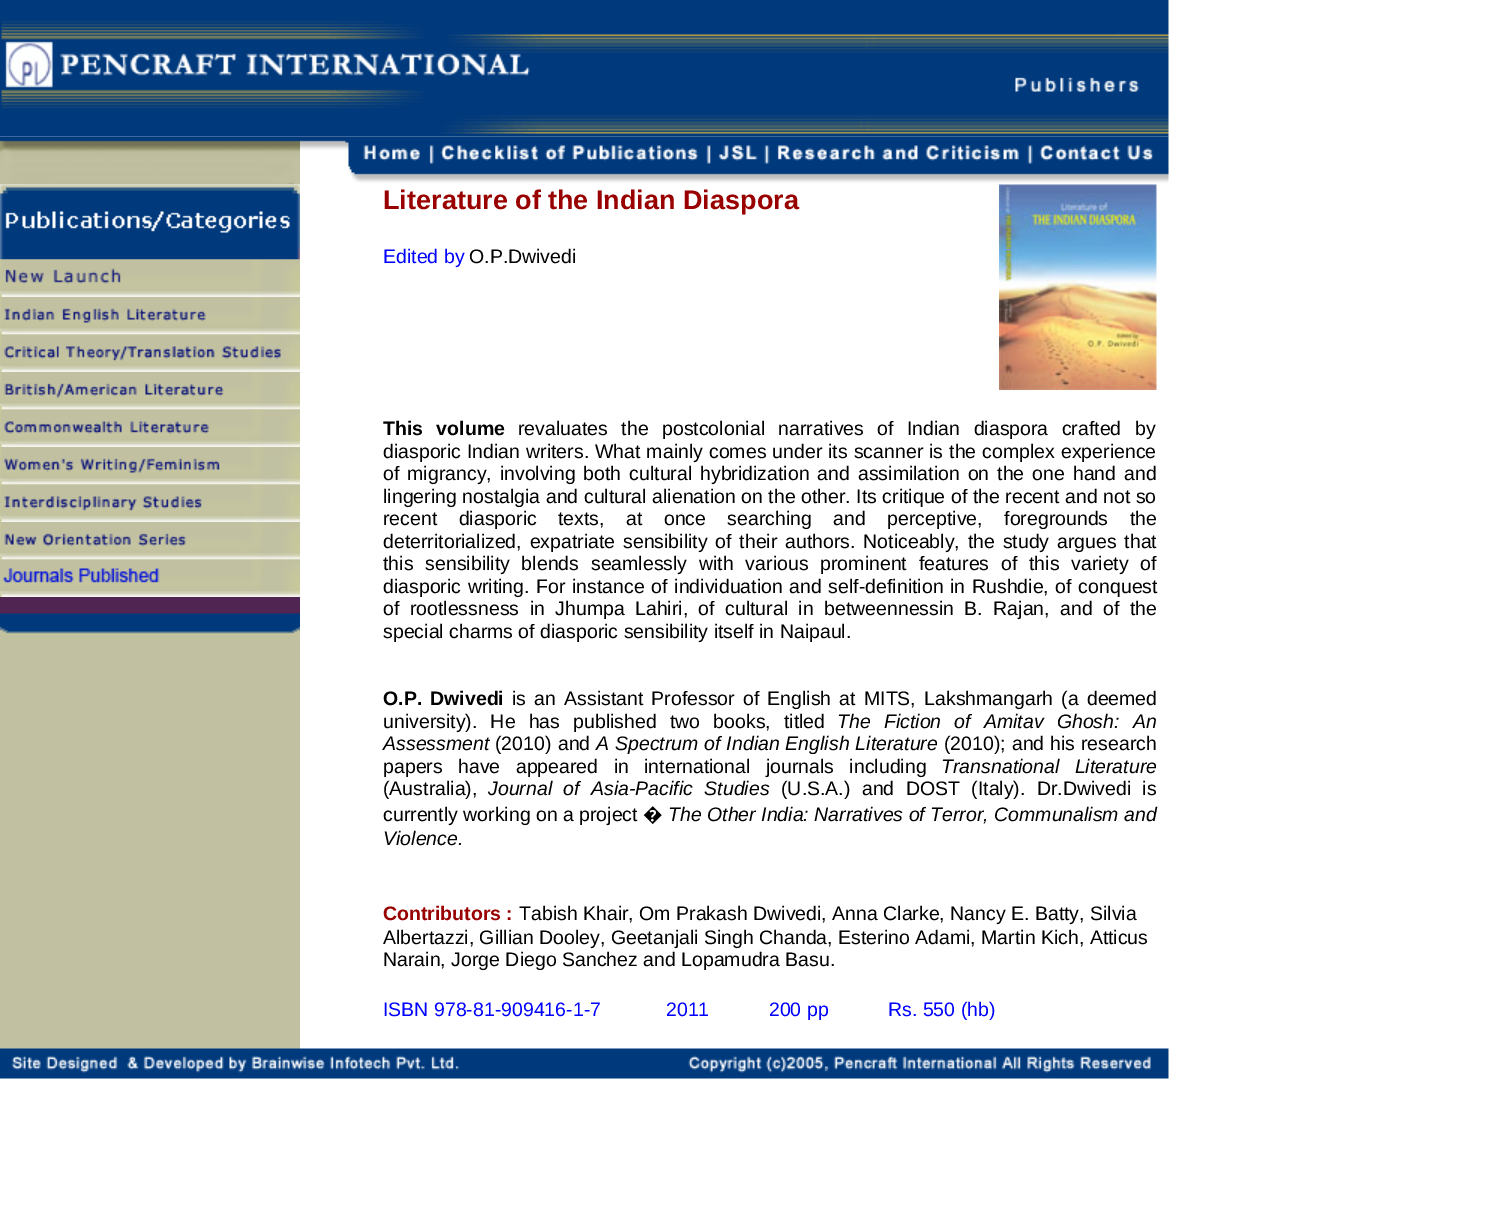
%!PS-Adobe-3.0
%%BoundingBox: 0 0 1500 1231
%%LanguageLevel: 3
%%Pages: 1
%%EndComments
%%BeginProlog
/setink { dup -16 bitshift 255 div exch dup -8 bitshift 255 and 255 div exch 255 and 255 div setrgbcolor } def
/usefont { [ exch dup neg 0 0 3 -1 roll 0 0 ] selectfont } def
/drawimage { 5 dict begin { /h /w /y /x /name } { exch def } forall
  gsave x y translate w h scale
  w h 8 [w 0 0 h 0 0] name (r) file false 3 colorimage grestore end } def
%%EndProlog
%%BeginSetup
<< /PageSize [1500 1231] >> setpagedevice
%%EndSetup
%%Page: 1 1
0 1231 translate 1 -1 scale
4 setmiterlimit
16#FFFFFF setink
0 0 1500 1231 rectfill
(img2.raw) 0 136 300 49 drawimage
(img1.raw) 0 0 1169 137 drawimage
(img3.raw) 300 136 869 47 drawimage
16#C1C1A2 setink
0 635 300 414 rectfill
16#CCCC99 setink
0 259 300 376 rectfill
(img4.raw) 0 184 300 76 drawimage
(img5.raw) 0 259 300 38 drawimage
(img6.raw) 0 297 300 38 drawimage
(img7.raw) 0 334 300 38 drawimage
(img8.raw) 0 372 300 38 drawimage
(img9.raw) 0 409 300 38 drawimage
(img10.raw) 0 447 300 38 drawimage
(img11.raw) 0 484 300 38 drawimage
(img12.raw) 0 522 300 38 drawimage
(img13.raw) 0 559 300 38 drawimage
(img14.raw) 0 597 300 38 drawimage
/LiberationSans-Bold 27 usefont
16#990000 setink
383 209 moveto (Literature of the Indian Diaspora) show
/LiberationSans-Regular 19.5 usefont
16#0000FF setink
383 263 moveto (Edited by) show
16#000000 setink
469 263 moveto (O.P.Dwivedi) show
(img15.raw) 999 184 158 206 drawimage
/LiberationSans-Bold 19.5 usefont
383 435 moveto 8 0 32 (This volume) widthshow
/LiberationSans-Regular 19.5 usefont
518 435 moveto 8 0 32 (revaluates the postcolonial narratives of Indian diaspora crafted by) widthshow
383 458 moveto (diasporic) show
467 458 moveto 0.6 0 32 (Indian writers. What mainly comes under its scanner is the complex experience) widthshow
383 480 moveto 2.5 0 32 (of migrancy, involving both cultural hybridization and assimilation on the one hand and) widthshow
383 503 moveto 0.1 0 32 (lingering nostalgia and cultural alienation on the other. Its critique of the recent and not so) widthshow
383 525 moveto 16 0 32 (recent diasporic texts, at once searching and perceptive, foregrounds the) widthshow
383 548 moveto 2.4 0 32 (deterritorialized, expatriate sensibility of their authors. Noticeably, the study argues that) widthshow
383 570 moveto 6.4 0 32 (this sensibility blends seamlessly with various prominent features of this variety of) widthshow
383 593 moveto 1.25 0 32 (diasporic writing. For instance of individuation and self-definition in Rushdie, of conquest) widthshow
383 615 moveto 5 0 32 (of rootlessness in Jhumpa Lahiri, of cultural in betweennessin B. Rajan, and of the) widthshow
383 638 moveto (special charms of diasporic sensibility itself in Naipaul.) show
/LiberationSans-Bold 19.5 usefont
383 705 moveto 2.75 0 32 (O.P. Dwivedi) widthshow
/LiberationSans-Regular 19.5 usefont
512 705 moveto 2.75 0 32 (is an Assistant Professor of English at MITS, Lakshmangarh \(a deemed) widthshow
383 728 moveto 7.75 0 32 (university\). He has published two books, titled) widthshow
/LiberationSans-Italic 19.5 usefont
837 728 moveto 7.75 0 32 (The Fiction of Amitav Ghosh:) widthshow
1133 728 moveto (An) show
383 750 moveto (Assessment) show
/LiberationSans-Regular 19.5 usefont
495 750 moveto 1 0 32 (\(2010\) and) widthshow
/LiberationSans-Italic 19.5 usefont
596 750 moveto 0.5 0 32 (A Spectrum of Indian English Literature) widthshow
/LiberationSans-Regular 19.5 usefont
944 750 moveto 0.5 0 32 (\(2010\); and his research) widthshow
383 773 moveto 10 0 32 (papers have appeared in international journals including) widthshow
/LiberationSans-Italic 19.5 usefont
941 773 moveto 10 0 32 (Transnational Literature) widthshow
/LiberationSans-Regular 19.5 usefont
383 795 moveto (\(Australia\),) show
/LiberationSans-Italic 19.5 usefont
488 795 moveto 6 0 32 (Journal of Asia-Pacific Studies) widthshow
/LiberationSans-Regular 19.5 usefont
781 795 moveto 6 0 32 (\(U.S.A.\) and DOST \(Italy\). Dr.Dwivedi is) widthshow
383 821 moveto (currently working on a project) show
/NotoSans-Regular 19.5 usefont
643 821 moveto (�) show
/LiberationSans-Italic 19.5 usefont
668 821 moveto (The Other India: Narratives of Terror, Communalism and) show
383 845 moveto (Violence.) show
/LiberationSans-Bold 19.5 usefont
16#990000 setink
383 920 moveto (Contributors :) show
/LiberationSans-Regular 19.5 usefont
16#000000 setink
[
    [(Tabish Khair, Om Prakash Dwivedi, Anna Clarke, Nancy E. Batty, Silvia) 519 920]
    [(Albertazzi, Gillian Dooley, Geetanjali Singh Chanda, Esterino Adami, Martin Kich, Atticus) 383 944]
    [(Narain, Jorge Diego Sanchez and Lopamudra Basu.) 383 966]
] { aload pop moveto show } forall
16#0000FF setink
383 1016 moveto (ISBN 978-81-909416-1-7            2011           200 pp           Rs. 550 \(hb\)) show
(img16.raw) 0 1048 1169 31 drawimage
showpage
%%EOF
